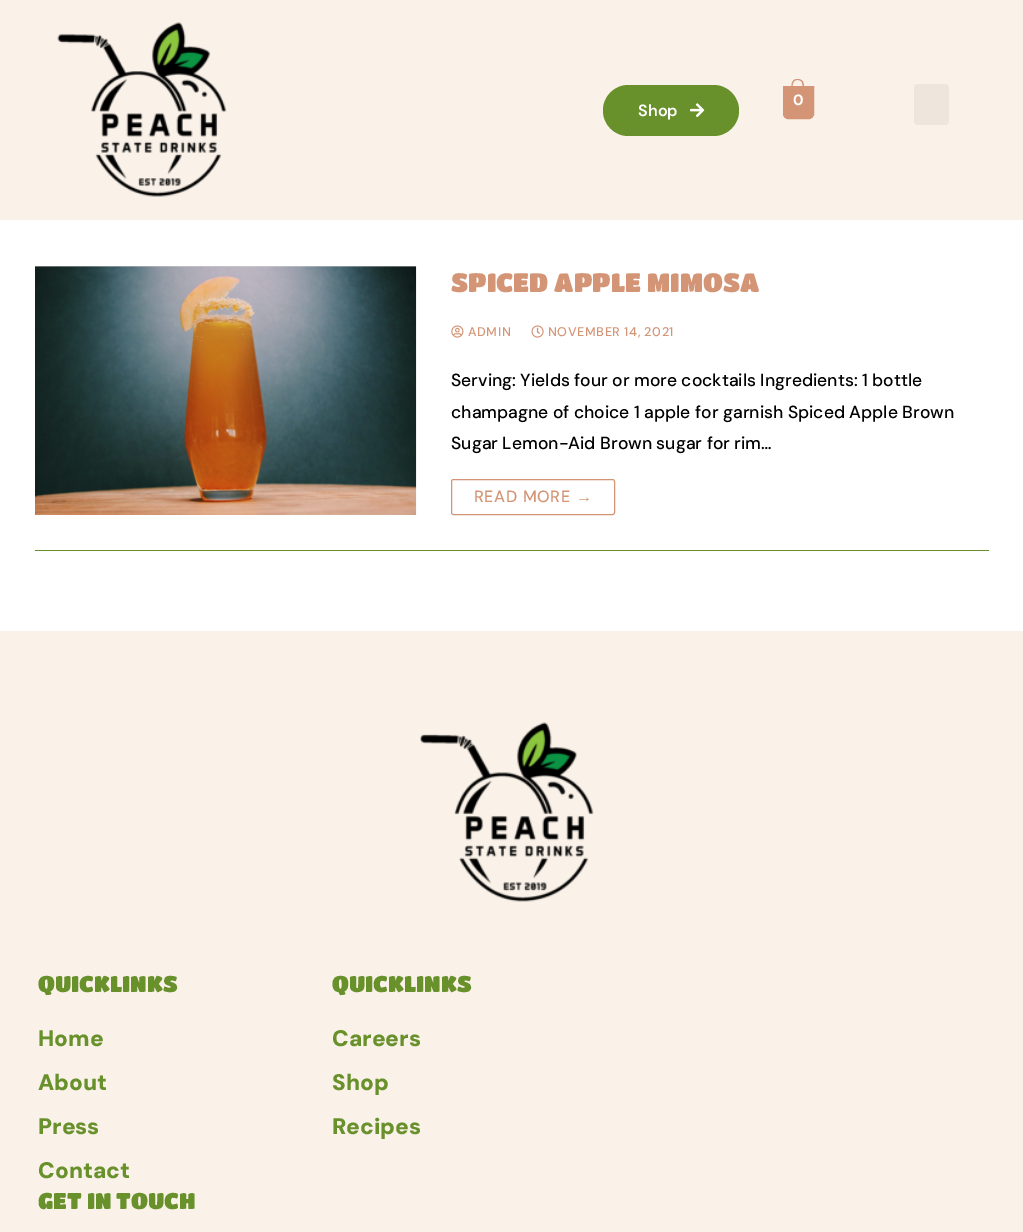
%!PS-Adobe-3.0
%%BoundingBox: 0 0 1023 1232
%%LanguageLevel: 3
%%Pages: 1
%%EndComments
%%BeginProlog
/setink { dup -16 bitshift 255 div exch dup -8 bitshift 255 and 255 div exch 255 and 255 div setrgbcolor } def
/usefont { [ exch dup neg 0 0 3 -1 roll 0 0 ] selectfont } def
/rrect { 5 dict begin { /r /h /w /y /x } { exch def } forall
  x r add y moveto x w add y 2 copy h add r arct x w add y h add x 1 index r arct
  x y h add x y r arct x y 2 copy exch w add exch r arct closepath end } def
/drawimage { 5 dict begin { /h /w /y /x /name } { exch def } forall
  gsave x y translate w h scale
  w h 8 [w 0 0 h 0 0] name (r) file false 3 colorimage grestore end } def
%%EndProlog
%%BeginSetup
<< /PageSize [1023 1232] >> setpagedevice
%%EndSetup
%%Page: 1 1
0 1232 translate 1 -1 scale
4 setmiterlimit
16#FFFFFF setink
0 0 1023 1232 rectfill
16#FAF2E9 setink
0 0 1023 220 rectfill
(img1.raw) 57 22 170 175 drawimage
16#D39576 setink
783.5 86.5 moveto 813.5 86.5 lineto 813.5 114 lineto 813.5 116.5 811.5 118.5 809 118.5 curveto 788 118.5 lineto 785.5 118.5 783.5 116.5 783.5 114 curveto closepath gsave fill grestore
stroke
797.5 79 moveto 805 79 804 86.5 804 91 curveto 791.5 91 lineto 791.5 86.5 790.5 79 797.5 79 curveto closepath 797.5 80 moveto 804 80 802.5 87 802.5 91 curveto 792.5 91 lineto 792.5 87 791.5 80 797.5 80 curveto closepath eofill
/DMSans-Bold 15 usefont
16#FFFFFF setink
793 105 moveto (0) show
16#68902B setink
603 85 136 51 25.5 rrect fill
/DMSans-SemiBold 16.25 usefont
16#FFFFFF setink
638 116 moveto (Shop) show
(img2.raw) 690 103 15 14 drawimage
16#EEE6DD setink
914 84 35 41 4 rrect fill
16#68902B setink
35 550 954 1 rectfill
16#D5D5D5 setink
35 266 381 1 rectfill
(img3.raw) 35 266 382 249 drawimage
/TitanOne-Regular 26.25 usefont
16#D39576 setink
451 292 moveto (SPICED APPLE MIMOSA) show
(img4.raw) 451 325 13 13 drawimage
/DMSans-Medium 12.6 usefont
468 336 moveto 0.6 0 (ADMIN) ashow
(img5.raw) 531 325 13 13 drawimage
548 336 moveto 0.6 0 (NOVEMBER 14, 2021) ashow
/DMSans-Medium 17.5 usefont
16#000000 setink
[
    [(Serving: Yields four or more cocktails Ingredients: 1 bottle) 451 386]
    [(champagne of choice 1 apple for garnish Spiced Apple Brown) 451 418]
    [(Sugar Lemon-Aid Brown sugar for rim…) 451 449]
] { aload pop moveto show } forall
16#D39576 setink
451.5 479.5 163 35 2 rrect stroke
/DMSans-Medium 16.25 usefont
474 502 moveto 0.6 0 (READ MORE) ashow
/LiberationSans-Regular 16.25 usefont
576 502 moveto 0.6 0 (→) ashow
16#FAF2E9 setink
0 631 1023 601 rectfill
(img6.raw) 420 722 174 180 drawimage
/TitanOne-Regular 22.5 usefont
16#68902B setink
38 992 moveto (QUICKLINKS) show
/DMSans-Black 22.5 usefont
[
    [(Home) 38 1046]
    [(About) 38 1090]
    [(Press) 38 1134]
    [(Contact) 38 1178]
] { aload pop moveto show } forall
/TitanOne-Regular 22.5 usefont
332 992 moveto (QUICKLINKS) show
/DMSans-Black 22.5 usefont
[
    [(Careers) 332 1046]
    [(Shop) 332 1090]
    [(Recipes) 332 1134]
] { aload pop moveto show } forall
/TitanOne-Regular 22.5 usefont
38 1209 moveto (GET IN TOUCH) show
showpage
%%EOF
